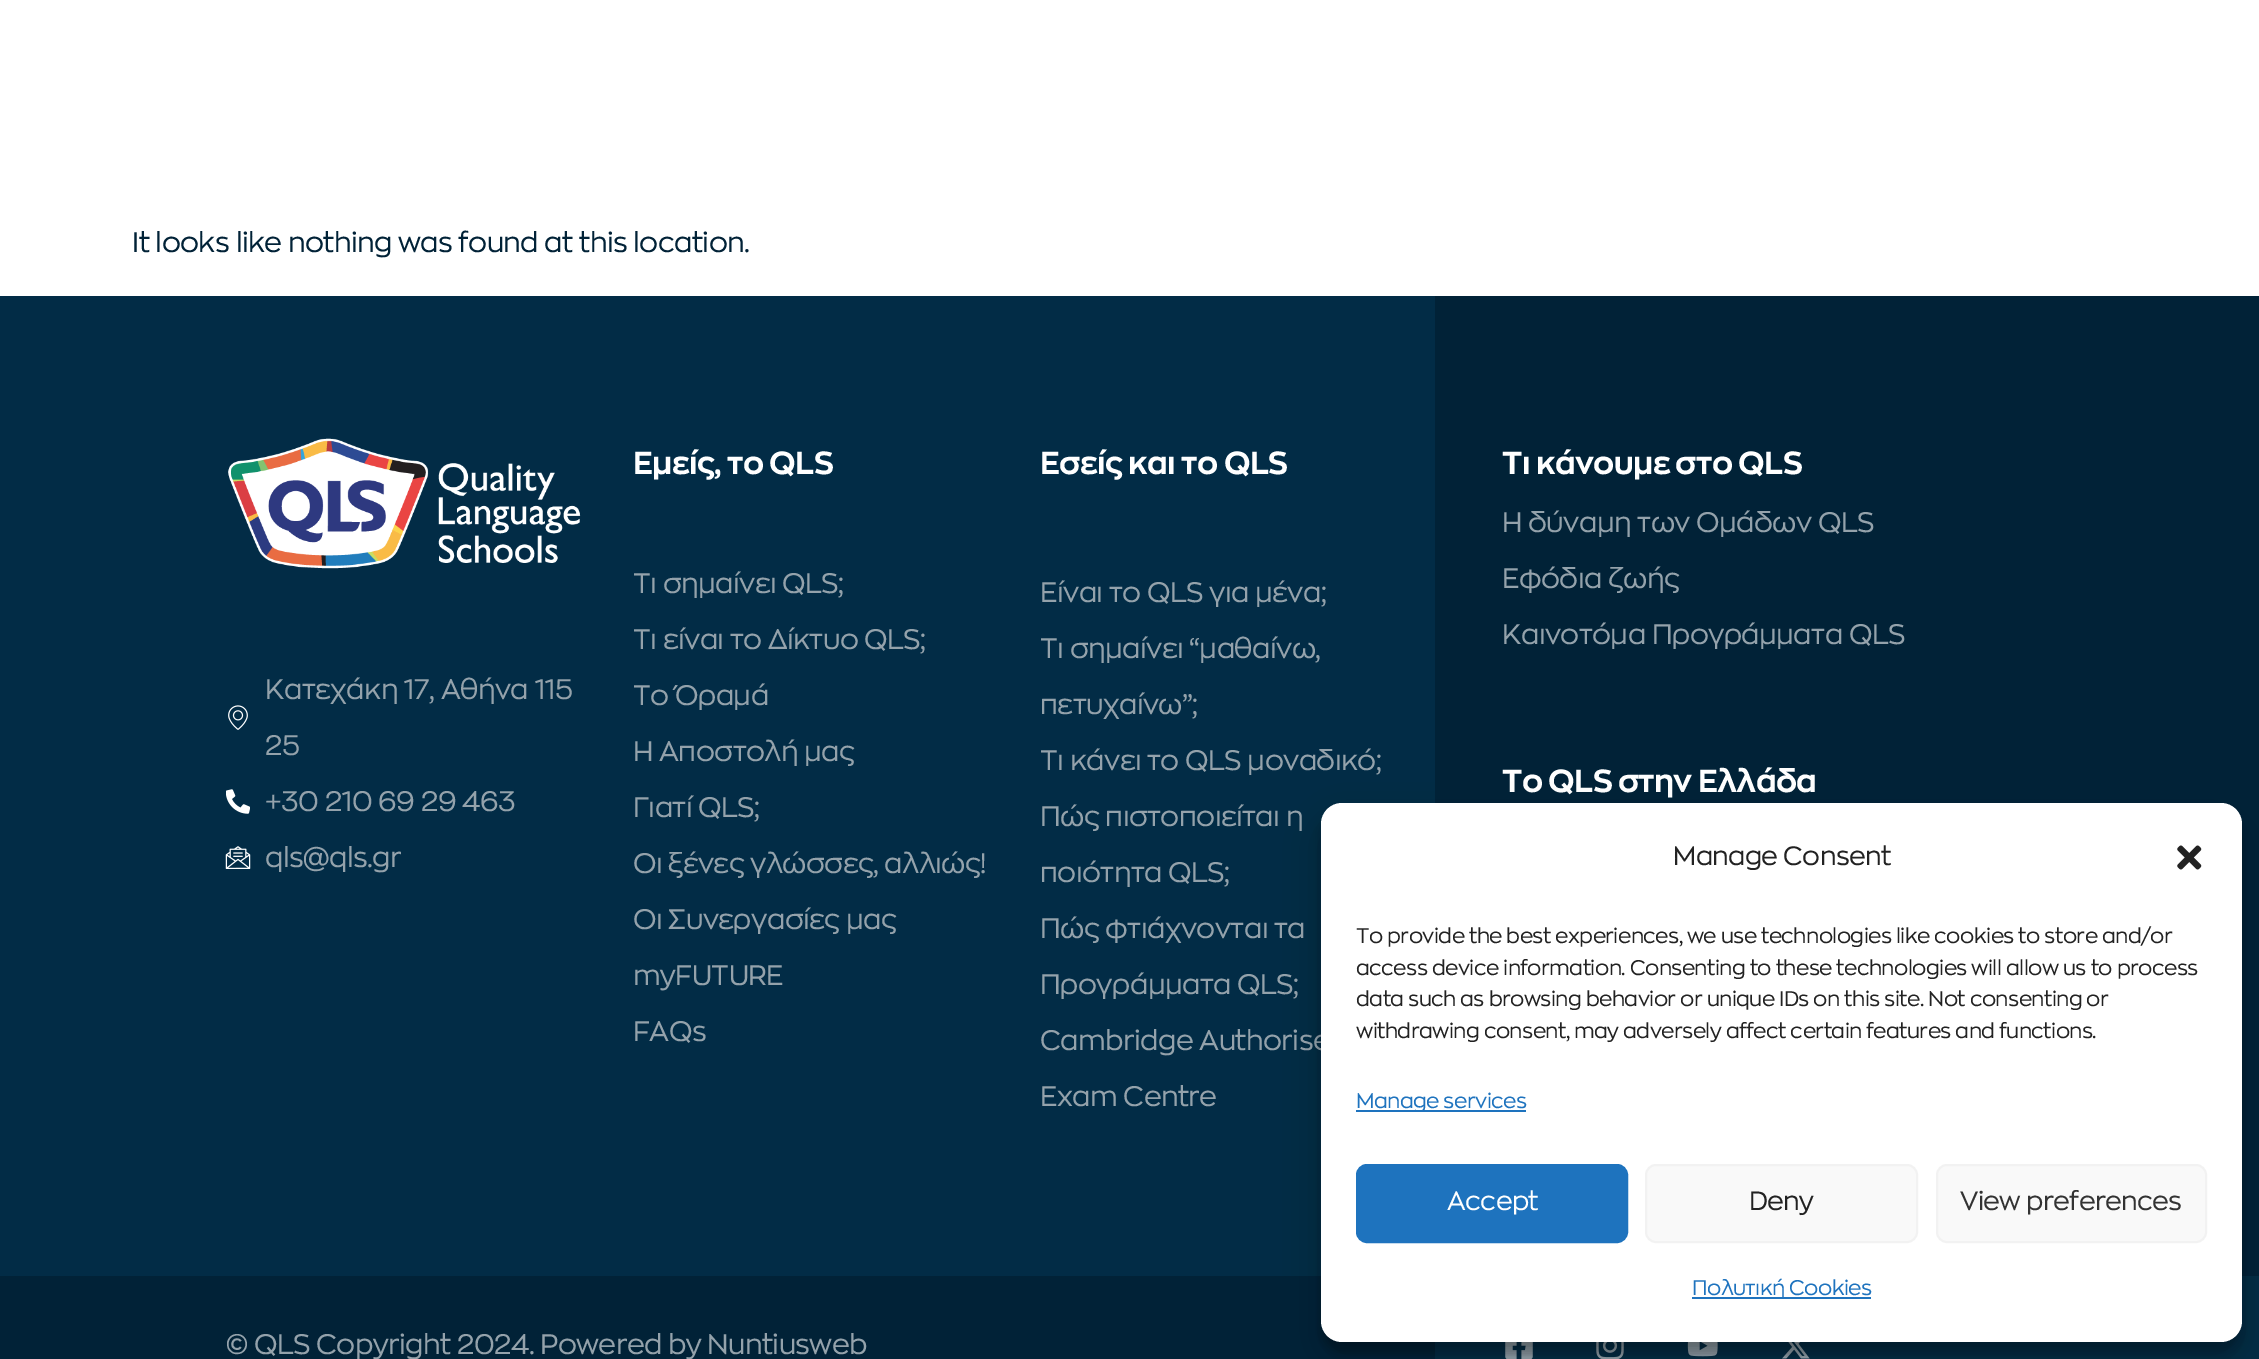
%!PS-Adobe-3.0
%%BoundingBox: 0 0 2259 1359
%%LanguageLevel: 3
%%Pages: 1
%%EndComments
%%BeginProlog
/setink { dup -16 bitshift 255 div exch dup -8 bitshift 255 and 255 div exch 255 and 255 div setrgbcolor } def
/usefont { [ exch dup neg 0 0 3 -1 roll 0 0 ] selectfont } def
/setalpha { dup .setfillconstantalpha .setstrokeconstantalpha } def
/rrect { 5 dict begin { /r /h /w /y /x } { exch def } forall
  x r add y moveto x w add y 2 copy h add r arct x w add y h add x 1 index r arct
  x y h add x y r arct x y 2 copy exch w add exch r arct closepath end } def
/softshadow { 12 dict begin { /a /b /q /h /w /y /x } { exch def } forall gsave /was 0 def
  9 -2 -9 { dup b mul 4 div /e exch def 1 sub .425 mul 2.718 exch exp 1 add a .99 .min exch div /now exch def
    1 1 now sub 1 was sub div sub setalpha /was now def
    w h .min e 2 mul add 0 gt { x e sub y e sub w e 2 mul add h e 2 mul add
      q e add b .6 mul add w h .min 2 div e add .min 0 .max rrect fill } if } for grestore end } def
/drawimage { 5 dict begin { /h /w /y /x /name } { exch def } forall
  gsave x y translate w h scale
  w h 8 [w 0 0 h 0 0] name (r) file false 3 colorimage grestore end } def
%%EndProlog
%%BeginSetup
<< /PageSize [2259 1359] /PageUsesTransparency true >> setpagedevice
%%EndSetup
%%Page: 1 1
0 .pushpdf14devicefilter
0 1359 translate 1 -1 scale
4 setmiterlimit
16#FFFFFF setink
0 0 2259 1359 rectfill
/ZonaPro-Regular 28 usefont
16#012237 setink
132 252 moveto -0.55 0 (It looks like nothing was found at this location.) ashow
16#022C46 setink
0 296 1435 980 rectfill
(img1.raw) 228 438 353 131 drawimage
(img2.raw) 228 705 20 25 drawimage
16#94A2AB setink
265 699 moveto -0.55 0 (Κατεχάκη 17, Αθήνα 115) ashow
265 755 moveto -0.55 0 (25) ashow
(img3.raw) 226 789 24 25 drawimage
265 811 moveto -0.55 0 (+30 210 69 29 463) ashow
(img4.raw) 225 846 26 23 drawimage
265 867 moveto -0.55 0 (qls@qls.gr) ashow
/ZonaPro-Bold 31.5 usefont
16#FFFFFF setink
633 474 moveto -0.6 0 (Eμείς, το QLS) ashow
/ZonaPro-Regular 28 usefont
16#94A2AB setink
633 593 moveto -0.55 0 (Τι σημαίνει QLS;) ashow
633 649 moveto -0.55 0 (Tι είναι το Δίκτυο QLS;) ashow
633 705 moveto -0.55 0 (Το Όραμά) ashow
633 761 moveto -0.55 0 (Η Αποστολή μας) ashow
633 817 moveto -0.55 0 (Γιατί QLS;) ashow
633 873 moveto -0.55 0 (Οι ξένες γλώσσες, αλλιώς!) ashow
633 929 moveto -0.55 0 (Οι Συνεργασίες μας) ashow
633 985 moveto -0.55 0 (myFUTURE) ashow
633 1041 moveto -0.55 0 (FAQs) ashow
/ZonaPro-Bold 31.5 usefont
16#FFFFFF setink
1040 474 moveto -0.6 0 (Εσείς και το QLS) ashow
/ZonaPro-Regular 28 usefont
16#94A2AB setink
1040 602 moveto -0.55 0 (Eίναι το QLS για μένα;) ashow
1040 658 moveto -0.55 0 (Τι σημαίνει “μαθαίνω,) ashow
1040 714 moveto -0.55 0 (πετυχαίνω”;) ashow
1040 770 moveto -0.55 0 (Tι κάνει το QLS μοναδικό;) ashow
1040 826 moveto -0.55 0 (Πώς πιστοποιείται η) ashow
1040 882 moveto -0.55 0 (ποιότητα QLS;) ashow
1040 938 moveto -0.55 0 (Πώς φτιάχνονται τα) ashow
1040 994 moveto -0.55 0 (Προγράμματα QLS;) ashow
1040 1050 moveto -0.55 0 (Cambridge Authorise) ashow
1040 1106 moveto -0.55 0 (Exam Centre) ashow
16#012237 setink
1435 296 824 980 rectfill
/ZonaPro-Bold 31.5 usefont
16#FFFFFF setink
1502 474 moveto -0.6 0 (Τι κάνουμε στο QLS) ashow
/ZonaPro-Regular 28 usefont
16#94A2AB setink
1502 532 moveto -0.55 0 (H δύναμη των Ομάδων QLS) ashow
1502 588 moveto -0.55 0 (Eφόδια ζωής) ashow
1502 644 moveto -0.55 0 (Kαινοτόμα Προγράμματα QLS) ashow
/ZonaPro-Bold 31.5 usefont
16#FFFFFF setink
1502 792 moveto -0.6 0 (Το QLS στην Ελλάδα) ashow
16#022C46 setink
1435 1276 824 83 rectfill
16#012237 setink
0 1276 1435 83 rectfill
/ZonaPro-Regular 28 usefont
16#94A2AB setink
226 1354 moveto -0.55 0 (© QLS Copyright 2024. Powered by Nuntiusweb) ashow
(img5.raw) 1505 1342 28 17 drawimage
(img6.raw) 1596 1342 28 17 drawimage
(img7.raw) 1687 1342 31 15 drawimage
(img8.raw) 1782 1342 28 17 drawimage
16#000000 setink
1321 814 921 539 21 5 0.23 softshadow
1321 821 921 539 21 17.5 0.19 softshadow
16#FFFFFF setink
1321 803 921 539 21 rrect fill
/ZonaPro-Regular 26.25 usefont
16#222222 setink
1673 865 moveto -0.55 0 (Manage Consent) ashow
(img9.raw) 2177 845 25 25 drawimage
/ZonaPro-Regular 21 usefont
1356 943 moveto -0.55 0 (To provide the best experiences, we use technologies like cookies to store and/or) ashow
1356 975 moveto -0.55 0 (access device information. Consenting to these technologies will allow us to process) ashow
1356 1006 moveto -0.55 0 (data such as browsing behavior or unique IDs on this site. Not consenting or) ashow
1356 1038 moveto -0.55 0 (withdrawing consent, may adversely affect certain features and functions.) ashow
16#1E73BE setink
1356 1110 170 2 rectfill
1356 1108 moveto -0.55 0 (Manage services) ashow
1357 1165 270 77 10 rrect gsave fill grestore
2 setlinewidth
stroke
/ZonaPro-Regular 26.25 usefont
16#FFFFFF setink
1447 1210 moveto -0.55 0 (Accept) ashow
16#F9F9F9 setink
1646 1165 271 77 10 rrect gsave fill grestore
16#F2F2F2 setink
stroke
16#222222 setink
1749 1210 moveto -0.55 0 (Deny) ashow
16#F9F9F9 setink
1937 1165 269 77 10 rrect gsave fill grestore
16#F2F2F2 setink
stroke
16#333333 setink
1960 1210 moveto -0.55 0 (View preferences) ashow
16#1E73BE setink
1692 1297 179 2 rectfill
/ZonaPro-Regular 21 usefont
1692 1295 moveto -0.55 0 (Πολυτική Cookies) ashow
.poppdf14devicefilter showpage
%%EOF
